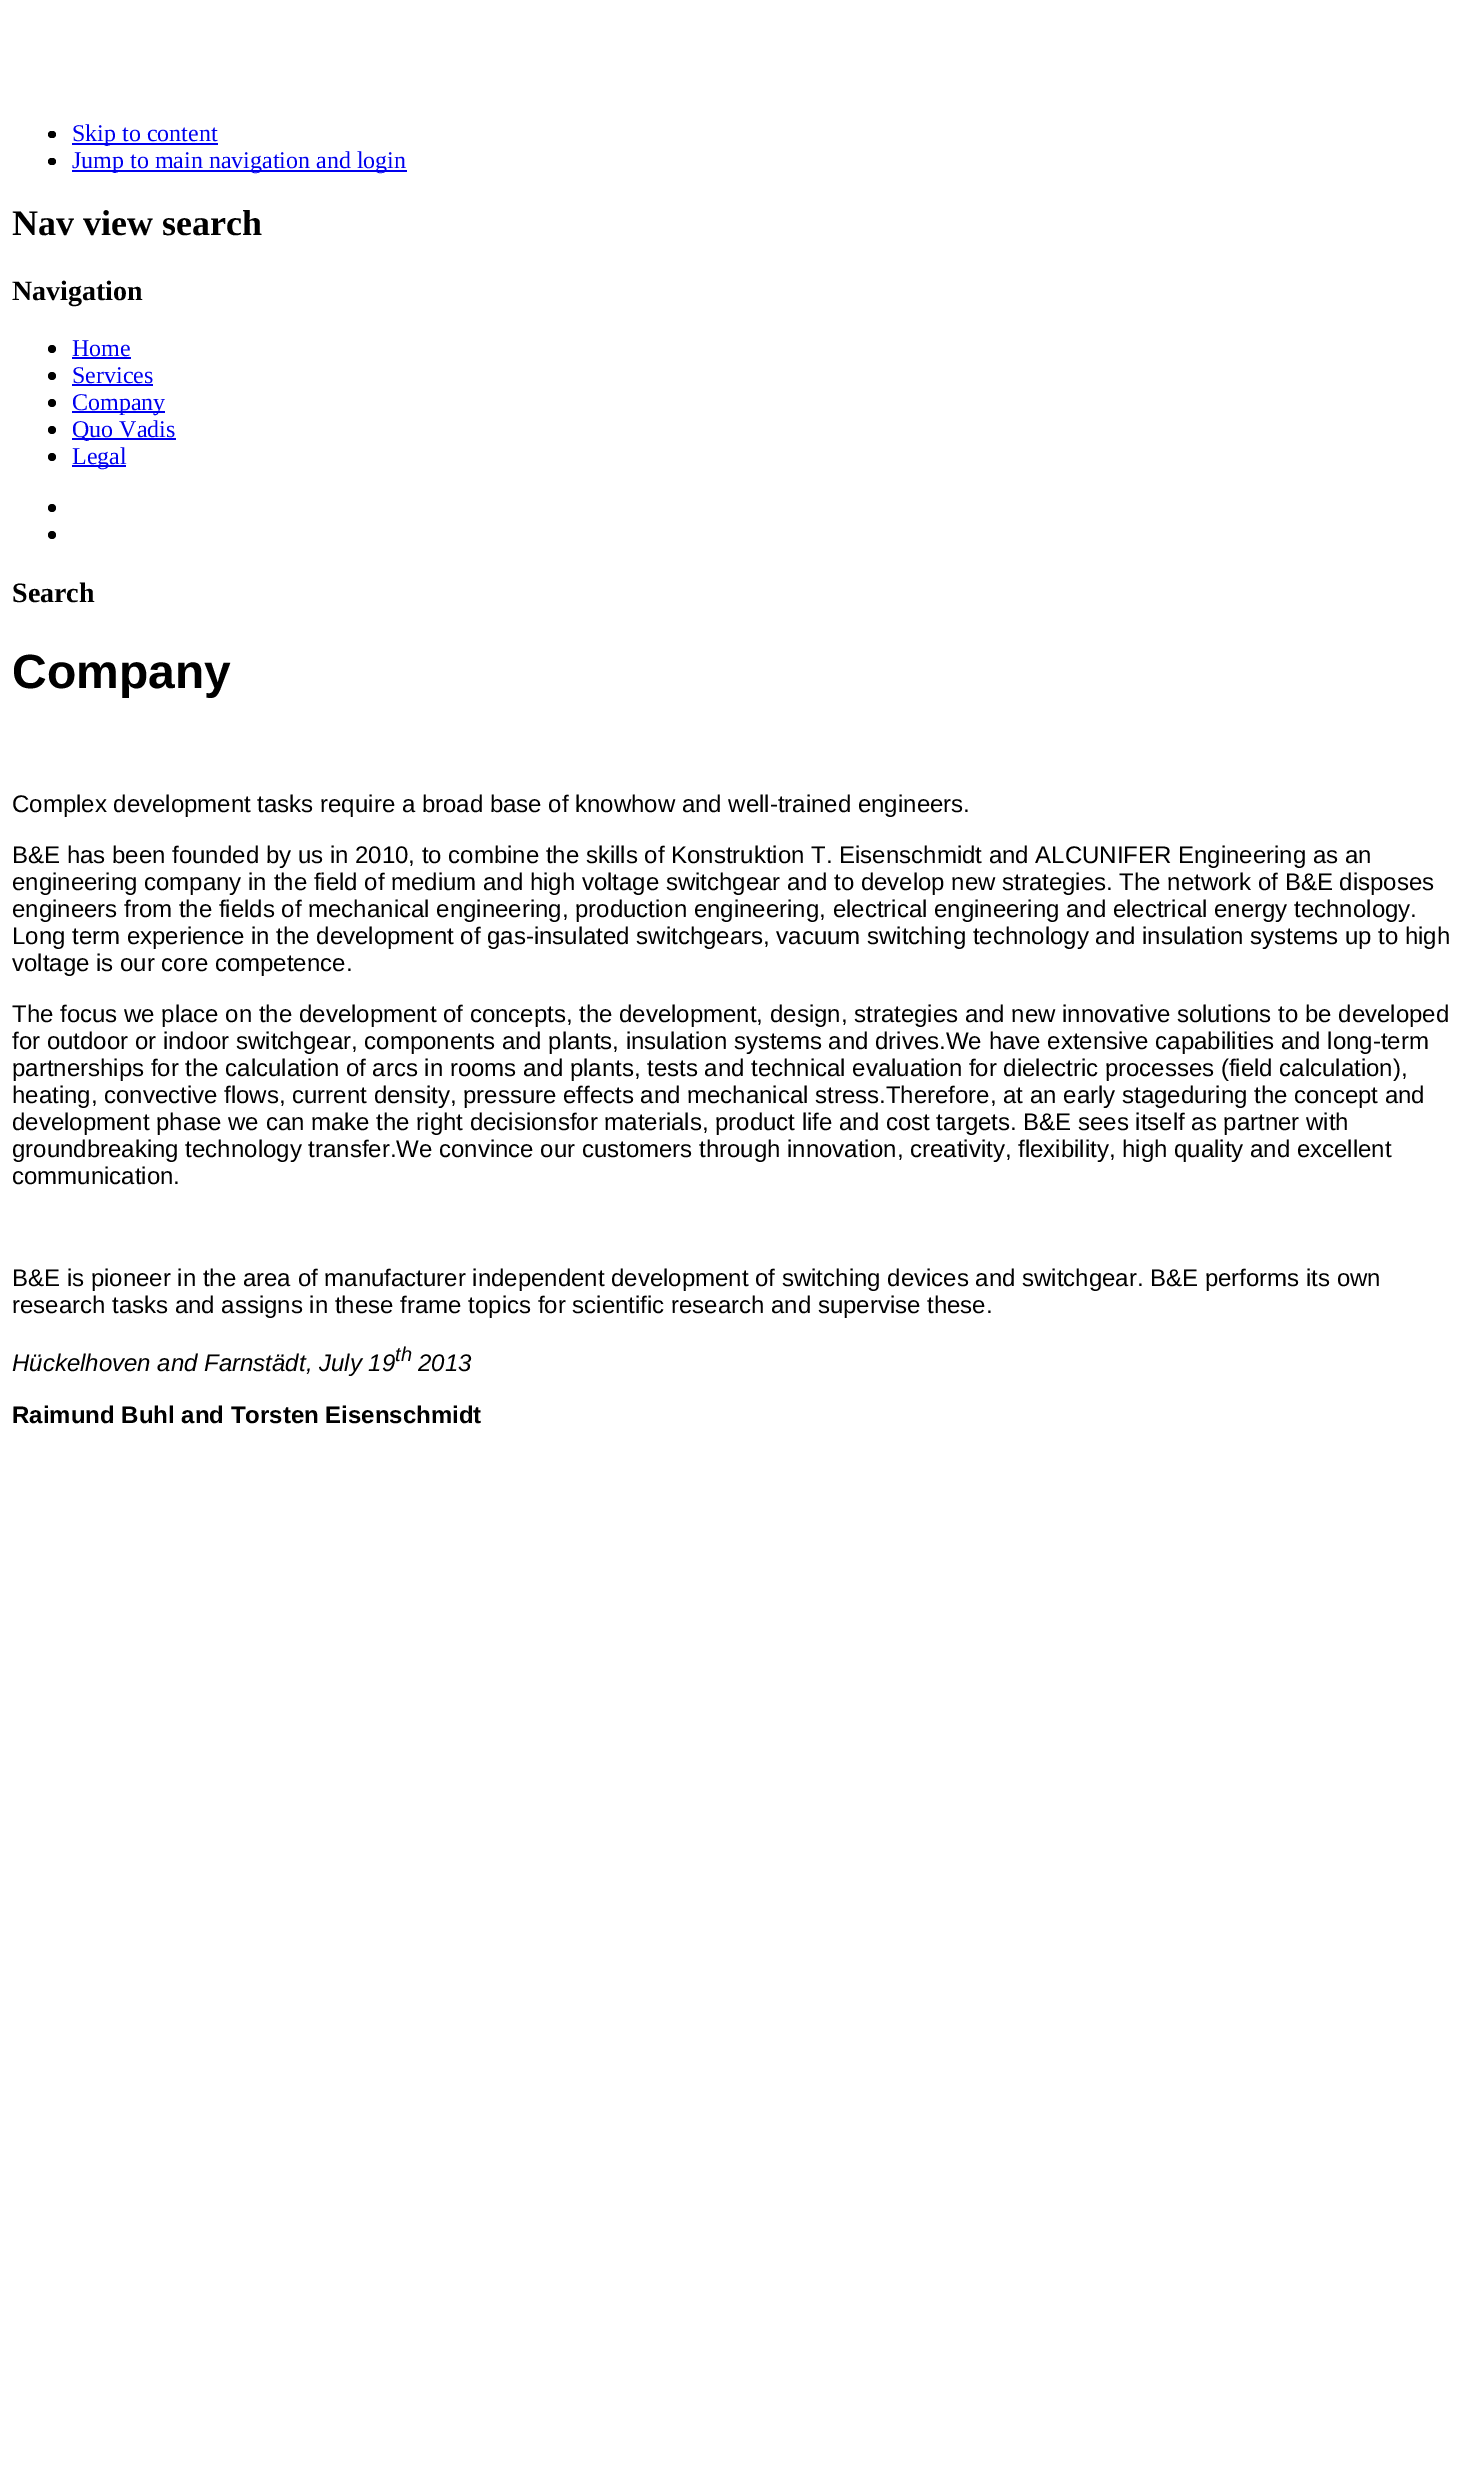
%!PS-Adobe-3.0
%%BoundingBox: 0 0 1480 2471
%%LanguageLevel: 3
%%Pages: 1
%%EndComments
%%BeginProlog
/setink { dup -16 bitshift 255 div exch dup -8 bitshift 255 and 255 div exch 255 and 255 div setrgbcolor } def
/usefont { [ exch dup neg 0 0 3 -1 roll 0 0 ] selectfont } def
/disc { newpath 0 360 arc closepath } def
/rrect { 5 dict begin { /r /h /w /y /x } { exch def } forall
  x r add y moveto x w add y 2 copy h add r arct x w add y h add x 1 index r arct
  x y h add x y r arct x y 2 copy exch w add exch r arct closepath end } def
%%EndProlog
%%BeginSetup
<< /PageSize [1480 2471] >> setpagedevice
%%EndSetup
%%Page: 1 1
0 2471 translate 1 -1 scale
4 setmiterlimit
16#FFFFFF setink
0 0 1480 2471 rectfill
16#000000 setink
48 131 8 7 3.5 rrect fill
16#0000EE setink
72 143 146 2 rectfill
/LiberationSerif-Regular 24 usefont
72 141 moveto (Skip to content) show
16#000000 setink
48 158 8 7 3.5 rrect fill
16#0000EE setink
72 170 335 2 rectfill
72 168 moveto (Jump to main navigation and login) show
/LiberationSerif-Bold 36 usefont
16#000000 setink
12 235 moveto (Nav view search) show
/LiberationSerif-Bold 28 usefont
12 300 moveto (Navigation) show
52 349 4 disc fill
/LiberationSerif-Regular 24 usefont
16#0000EE setink
72 356 moveto (Home) show
72 357 59 2 rectfill
16#000000 setink
52 376 4 disc fill
16#0000EE setink
72 383 moveto (Services) show
72 384 81 2 rectfill
16#000000 setink
52 403 4 disc fill
16#0000EE setink
72 411 93 2 rectfill
72 410 moveto (Company) show
16#000000 setink
52 430 4 disc fill
16#0000EE setink
72 438 104 2 rectfill
72 437 moveto (Quo Vadis) show
16#000000 setink
52 457 4 disc fill
16#0000EE setink
72 465 54 2 rectfill
72 464 moveto (Legal) show
16#000000 setink
52 508 4 disc fill
52 535 4 disc fill
/LiberationSerif-Bold 28 usefont
12 602 moveto (Search) show
/LiberationSans-Bold 48 usefont
12 688 moveto (Company) show
/LiberationSans-Regular 24 usefont
[
    [(Complex development tasks require a broad base of knowhow and well-trained engineers.) 12 812]
    [(B&E has been founded by us in 2010, to combine the skills of Konstruktion T. Eisenschmidt and ALCUNIFER Engineering as an) 12 863]
    [(engineering company in the field of medium and high voltage switchgear and to develop new strategies. The network of B&E disposes) 12 890]
    [(engineers from the fields of mechanical engineering, production engineering, electrical engineering and electrical energy technology.) 12 917]
    [(Long term experience in the development of gas-insulated switchgears, vacuum switching technology and insulation systems up to high) 12 944]
    [(voltage is our core competence.) 12 971]
    [(The focus we place on the development of concepts, the development, design, strategies and new innovative solutions to be developed) 12 1022]
    [(for outdoor or indoor switchgear, components and plants, insulation systems and drives.We have extensive capabilities and long-term) 12 1049]
    [(partnerships for the calculation of arcs in rooms and plants, tests and technical evaluation for dielectric processes \(field calculation\),) 12 1076]
    [(heating, convective flows, current density, pressure effects and mechanical stress.Therefore, at an early stageduring the concept and) 12 1103]
    [(development phase we can make the right decisionsfor materials, product life and cost targets. B&E sees itself as partner with) 12 1130]
    [(groundbreaking technology transfer.We convince our customers through innovation, creativity, flexibility, high quality and excellent) 12 1157]
    [(communication.) 12 1184]
    [(B&E is pioneer in the area of manufacturer independent development of switching devices and switchgear. B&E performs its own) 12 1286]
    [(research tasks and assigns in these frame topics for scientific research and supervise these.) 12 1313]
] { aload pop moveto show } forall
/LiberationSans-Italic 24 usefont
12 1371 moveto (Hückelhoven and Farnstädt, July 19) show
/LiberationSans-Italic 20 usefont
395 1361 moveto (th) show
/LiberationSans-Italic 24 usefont
418 1371 moveto (2013) show
/LiberationSans-Bold 24 usefont
12 1423 moveto (Raimund Buhl and Torsten Eisenschmidt) show
showpage
%%EOF
